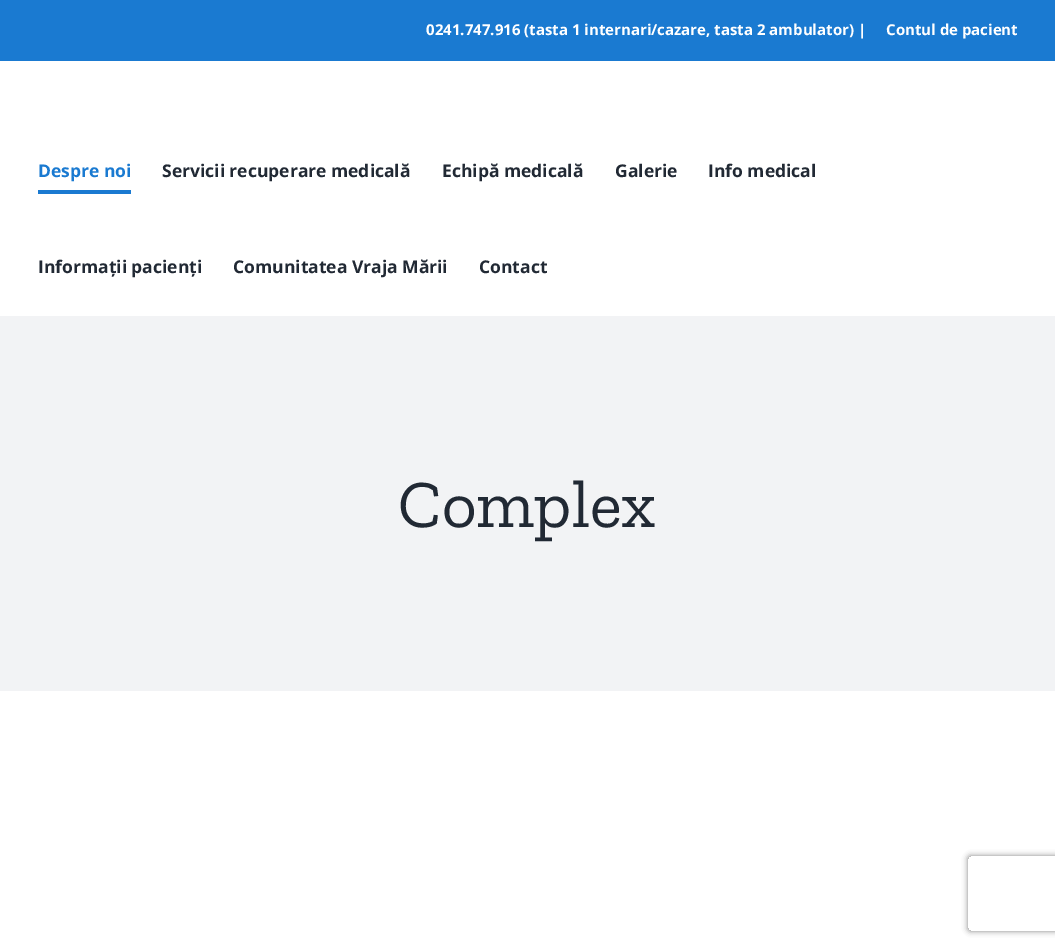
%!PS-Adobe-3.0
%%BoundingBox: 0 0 1055 948
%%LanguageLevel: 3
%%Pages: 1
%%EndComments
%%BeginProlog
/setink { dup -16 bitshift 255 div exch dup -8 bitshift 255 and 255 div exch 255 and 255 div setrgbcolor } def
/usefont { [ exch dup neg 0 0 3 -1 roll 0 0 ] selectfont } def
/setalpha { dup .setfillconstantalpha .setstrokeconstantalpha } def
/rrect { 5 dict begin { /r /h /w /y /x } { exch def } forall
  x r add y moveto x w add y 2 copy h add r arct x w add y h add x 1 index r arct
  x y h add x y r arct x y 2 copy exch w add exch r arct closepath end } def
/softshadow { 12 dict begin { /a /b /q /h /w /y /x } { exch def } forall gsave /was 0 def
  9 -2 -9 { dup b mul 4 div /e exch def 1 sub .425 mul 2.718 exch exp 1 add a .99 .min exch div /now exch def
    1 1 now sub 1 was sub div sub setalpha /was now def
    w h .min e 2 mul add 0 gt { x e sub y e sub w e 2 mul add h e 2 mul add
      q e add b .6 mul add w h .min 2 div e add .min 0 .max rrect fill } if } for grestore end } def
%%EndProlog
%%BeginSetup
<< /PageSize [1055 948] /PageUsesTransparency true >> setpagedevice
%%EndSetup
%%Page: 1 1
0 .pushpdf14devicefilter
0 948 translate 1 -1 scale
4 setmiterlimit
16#FFFFFF setink
0 0 1055 948 rectfill
16#1A7AD1 setink
0 0 1055 61 rectfill
/OpenSans-Bold 15 usefont
16#FFFFFF setink
426 35 moveto (0241.747.916 \(tasta 1 internari/cazare, tasta 2 ambulator\) |) show
886 35 moveto (Contul de pacient) show
/OpenSans-Bold 17.5 usefont
16#1A7AD1 setink
38 177 moveto (Despre noi) show
38 190 93 4 rectfill
16#212934 setink
[
    [(Servicii recuperare medicală) 162 177]
    [(Echipă medicală) 442 177]
    [(Galerie) 615 177]
    [(Info medical) 708 177]
    [(Informații pacienți) 38 273]
    [(Comunitatea Vraja Mării) 233 273]
    [(Contact) 479 273]
] { aload pop moveto show } forall
16#F2F3F5 setink
0 316 1055 375 rectfill
/ZillaSlab-Regular 67.5 usefont
16#212934 setink
398 527 moveto (Complex) show
gsave
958 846 moveto 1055 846 lineto 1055 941 lineto 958 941 lineto closepath 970.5 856 moveto 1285.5 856 lineto 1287 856 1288 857 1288 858.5 curveto 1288 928.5 lineto 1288 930 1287 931 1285.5 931 curveto 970.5 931 lineto 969 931 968 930 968 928.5 curveto 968 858.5 lineto 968 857 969 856 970.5 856 curveto closepath eoclip newpath
16#808080 setink
968 856 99 75 2.5 3 1 softshadow
grestore
.poppdf14devicefilter showpage
%%EOF
